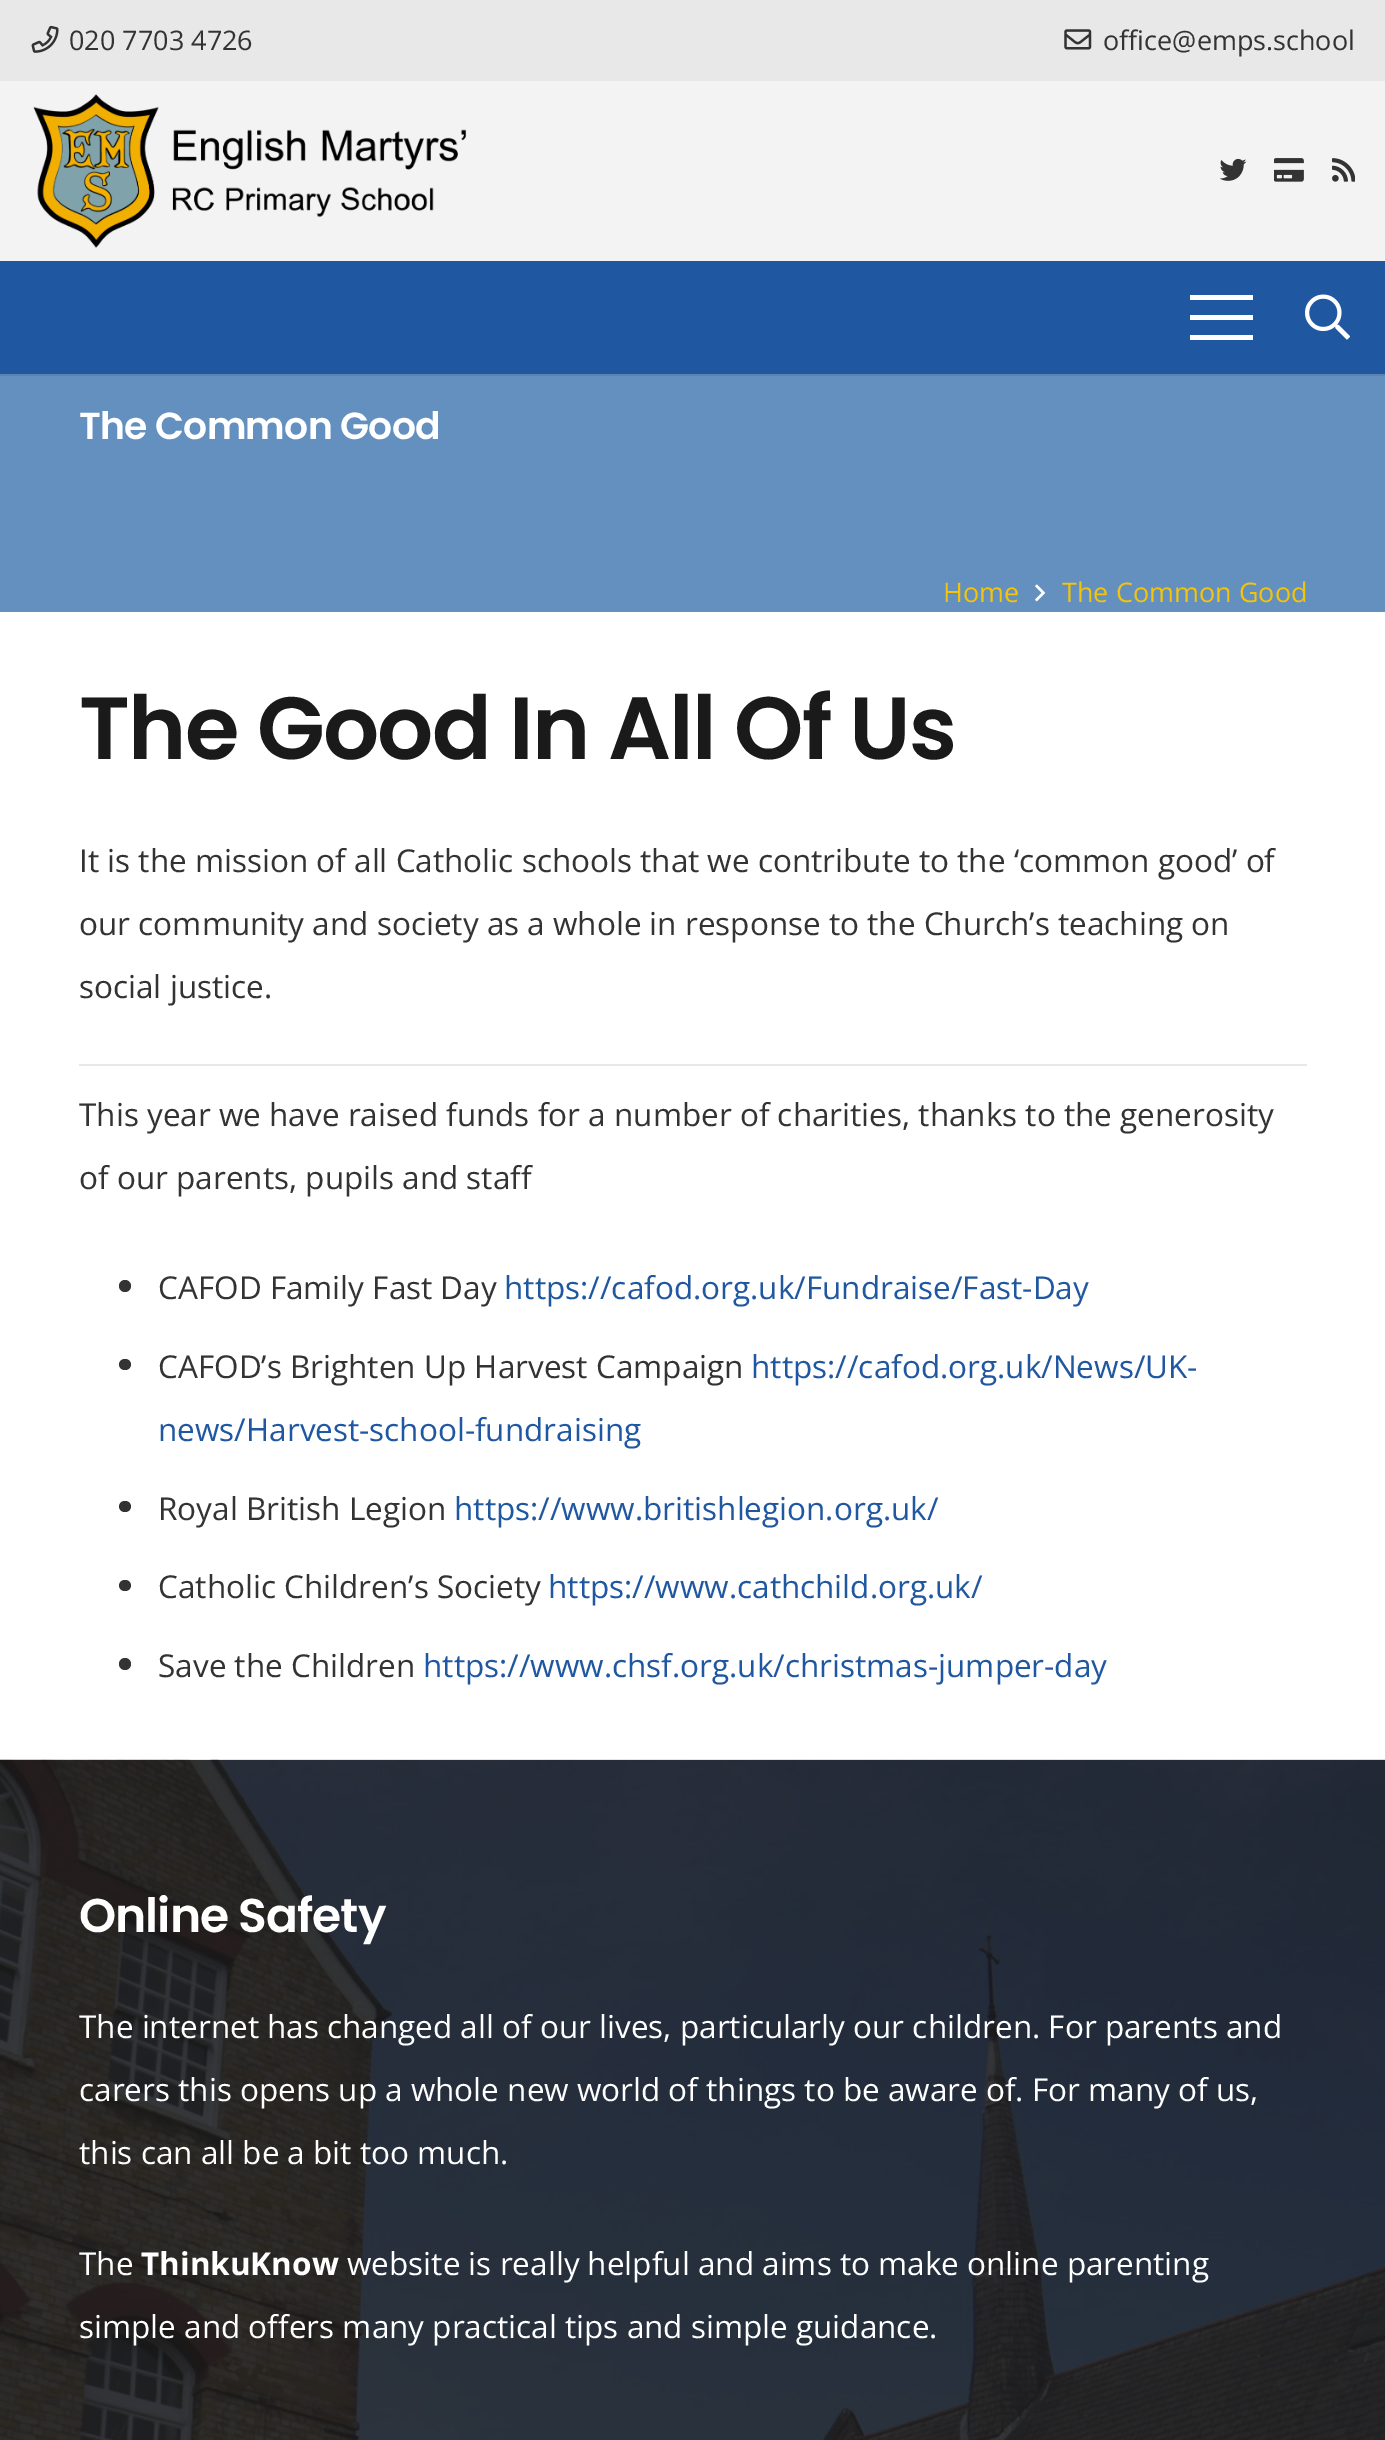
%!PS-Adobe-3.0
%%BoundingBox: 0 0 1385 2440
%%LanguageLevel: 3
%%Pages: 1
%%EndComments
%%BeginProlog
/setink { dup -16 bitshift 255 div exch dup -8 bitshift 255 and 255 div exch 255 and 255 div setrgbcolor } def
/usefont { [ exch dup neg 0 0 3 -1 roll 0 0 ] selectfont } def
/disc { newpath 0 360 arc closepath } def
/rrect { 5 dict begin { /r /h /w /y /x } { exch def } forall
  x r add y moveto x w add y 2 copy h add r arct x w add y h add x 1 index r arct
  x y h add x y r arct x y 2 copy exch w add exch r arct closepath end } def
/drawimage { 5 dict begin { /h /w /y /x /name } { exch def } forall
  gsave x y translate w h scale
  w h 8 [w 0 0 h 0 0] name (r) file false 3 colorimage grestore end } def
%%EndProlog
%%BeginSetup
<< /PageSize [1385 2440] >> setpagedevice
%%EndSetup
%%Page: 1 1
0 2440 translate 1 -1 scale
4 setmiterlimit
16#FFFFFF setink
0 0 1385 2440 rectfill
16#E8E8E8 setink
0 0 1385 81 rectfill
(img1.raw) 31 25 28 28 drawimage
/OpenSans-Regular 27 usefont
16#333333 setink
69 50 moveto (020 7703 4726) show
(img2.raw) 1064 29 28 21 drawimage
1103 50 moveto (office@emps.school) show
16#F3F3F3 setink
0 81 1385 180 rectfill
(img3.raw) 33 94 434 154 drawimage
(img4.raw) 1220 158 27 23 drawimage
(img5.raw) 1274 158 30 24 drawimage
(img6.raw) 1332 158 23 24 drawimage
[
    [0 374 1385 2 16#5B84B0]
    [0 261 1385 113 16#1F57A1]
    [1190 315 63 5 16#FFFFFF]
    [1190 295 63 5 16#FFFFFF]
    [1190 335 63 5 16#FFFFFF]
] { aload pop setink rectfill } forall
(img7.raw) 1305 294 45 46 drawimage
16#6390BF setink
0 376 1385 236 rectfill
/Poppins-SemiBold 37.75 usefont
16#FFFFFF setink
79 439 moveto -0.75 0 (The Common Good) ashow
/OpenSans-Regular 27 usefont
16#F3C409 setink
943 602 moveto (Home) show
(img8.raw) 1035 584 11 18 drawimage
1062 602 moveto (The Common Good) show
/Poppins-SemiBold 88.25 usefont
16#1A1A1A setink
79 759 moveto -1.75 0 (The Good In All Of Us) ashow
/OpenSans-Regular 31.5 usefont
16#333333 setink
[
    [(It is the mission of all Catholic schools that we contribute to the ‘common good’ of) 79 872]
    [(our community and society as a whole in response to the Church’s teaching on) 79 935]
    [(social justice.) 79 998]
] { aload pop moveto show } forall
16#E8E8E8 setink
79 1064 1228 2 rectfill
16#333333 setink
79 1126 moveto (This year we have raised funds for a number of charities, thanks to the generosity) show
79 1189 moveto (of our parents, pupils and staff) show
125 1286 6 disc fill
158 1299 moveto (CAFOD Family Fast Day) show
16#1F57A1 setink
504 1299 moveto (https://cafod.org.uk/Fundraise/Fast-Day) show
16#333333 setink
119 1359 12 11 5.5 rrect fill
158 1378 moveto (CAFOD’s Brighten Up Harvest Campaign) show
16#1F57A1 setink
751 1378 moveto (https://cafod.org.uk/News/UK-) show
158 1441 moveto (news/Harvest-school-fundraising) show
16#333333 setink
119 1501 12 11 5.5 rrect fill
158 1520 moveto (Royal British Legion) show
16#1F57A1 setink
454 1520 moveto (https://www.britishlegion.org.uk/) show
16#333333 setink
119 1580 12 11 5.5 rrect fill
158 1598 moveto (Catholic Children’s Society) show
16#1F57A1 setink
548 1598 moveto (https://www.cathchild.org.uk/) show
16#333333 setink
125 1664 6 disc fill
158 1677 moveto (Save the Children) show
16#1F57A1 setink
423 1677 moveto (https://www.chsf.org.uk/christmas-jumper-day) show
(img9.raw) 0 1759 1385 681 drawimage
/Poppins-SemiBold 47.25 usefont
16#FFFFFF setink
79 1932 moveto -1 0 (Online Safety) ashow
/OpenSans-Regular 31.5 usefont
[
    [(The internet has changed all of our lives, particularly our children. For parents and) 79 2038]
    [(carers this opens up a whole new world of things to be aware of. For many of us,) 79 2101]
    [(this can all be a bit too much.) 79 2164]
    [(The) 79 2275]
] { aload pop moveto show } forall
/OpenSans-Bold 31.5 usefont
141 2275 moveto (ThinkuKnow) show
/OpenSans-Regular 31.5 usefont
347 2275 moveto (website is really helpful and aims to make online parenting) show
79 2338 moveto (simple and offers many practical tips and simple guidance.) show
showpage
%%EOF
